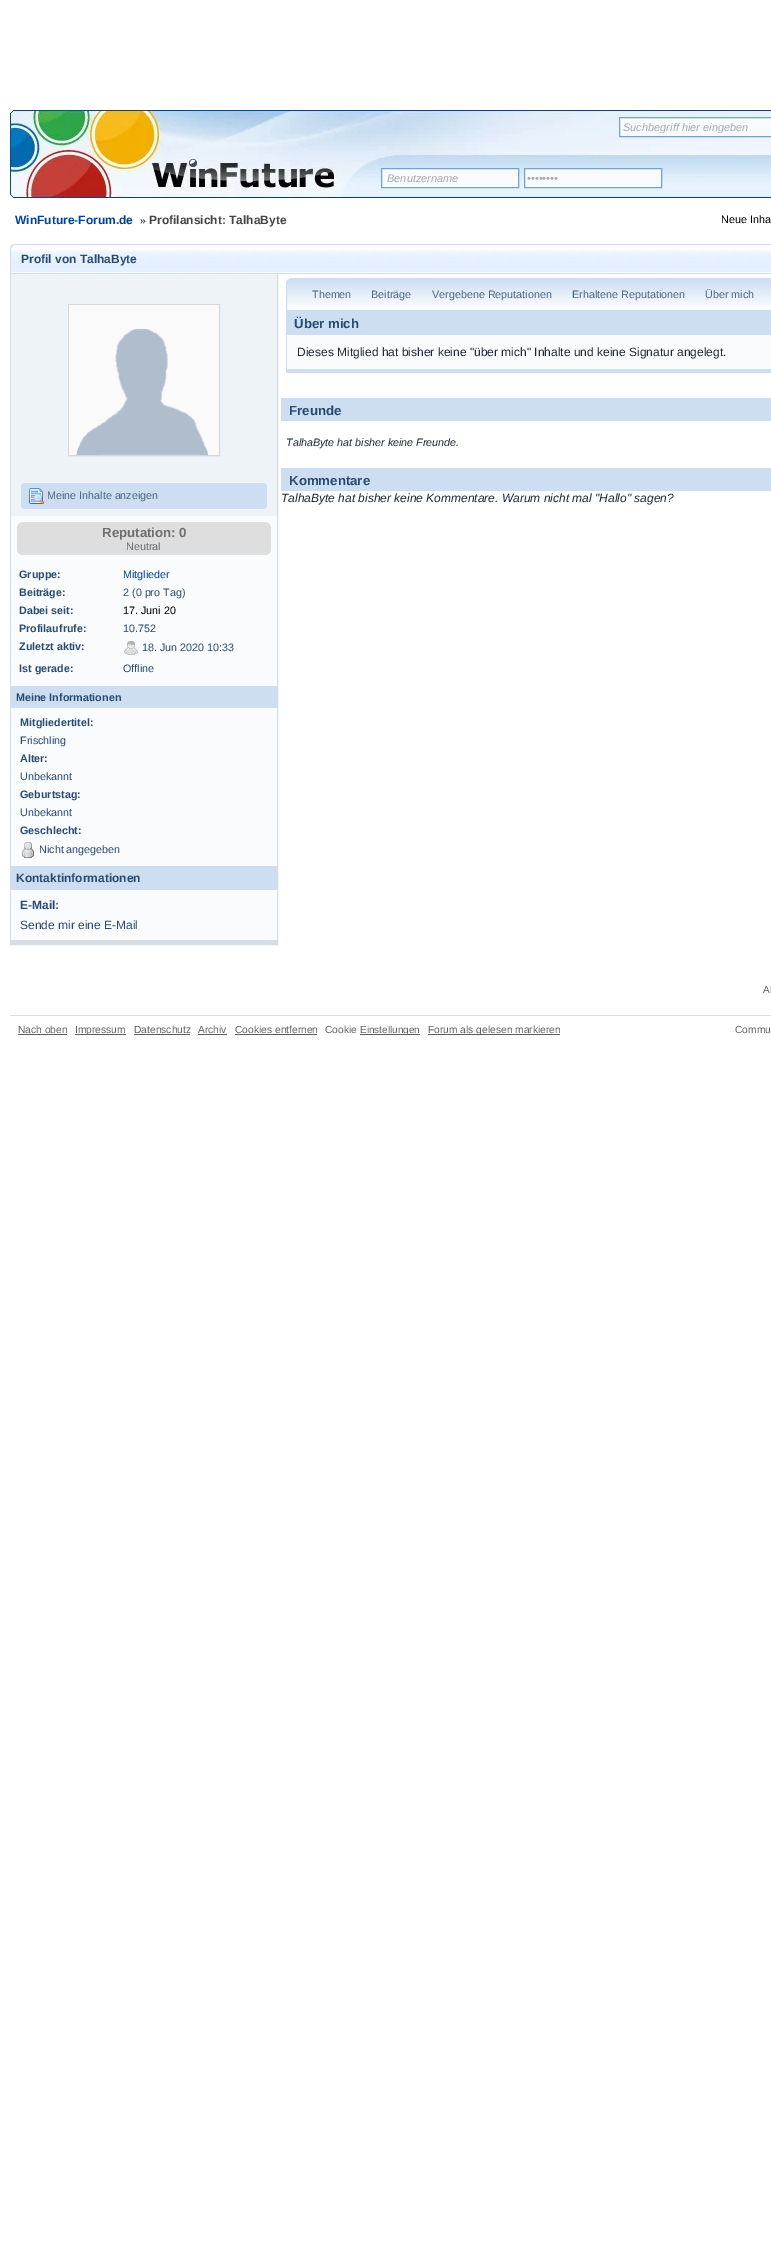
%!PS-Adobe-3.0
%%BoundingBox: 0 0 771 2261
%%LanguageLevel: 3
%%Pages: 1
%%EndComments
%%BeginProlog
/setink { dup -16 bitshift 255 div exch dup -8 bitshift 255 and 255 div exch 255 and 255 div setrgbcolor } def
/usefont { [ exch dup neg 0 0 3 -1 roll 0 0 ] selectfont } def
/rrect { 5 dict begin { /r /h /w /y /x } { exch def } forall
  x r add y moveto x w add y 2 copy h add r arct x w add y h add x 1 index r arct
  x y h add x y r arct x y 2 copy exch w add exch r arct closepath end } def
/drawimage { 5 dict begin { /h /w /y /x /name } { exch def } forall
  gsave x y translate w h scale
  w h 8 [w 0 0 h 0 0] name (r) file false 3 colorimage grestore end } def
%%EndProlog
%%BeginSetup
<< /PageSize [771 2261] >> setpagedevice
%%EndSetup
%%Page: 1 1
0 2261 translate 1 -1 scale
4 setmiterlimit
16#FFFFFF setink
0 0 771 2261 rectfill
(img1.raw) 10 110 761 88 drawimage
16#F8FBFE setink
619.5 117.5 moveto 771.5 117.5 lineto 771.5 136.5 lineto 619.5 136.5 lineto closepath gsave fill grestore
16#77A0CA setink
stroke
gsave
623 121 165 12 rectclip
/LiberationSans-Italic 11 usefont
16#A9A9A9 setink
623 131 moveto (Suchbegriff hier eingeben) show
grestore
16#F8FBFE setink
381.5 168.5 moveto 518.5 168.5 lineto 518.5 187.5 lineto 381.5 187.5 lineto closepath gsave fill grestore
16#77A0CA setink
stroke
/LiberationSans-Italic 11 usefont
16#A9A9A9 setink
387 182 moveto (Benutzername) show
16#F8FBFE setink
524.5 168.5 moveto 661.5 168.5 lineto 661.5 187.5 lineto 524.5 187.5 lineto closepath gsave fill grestore
16#77A0CA setink
stroke
16#A9A9A9 setink
527 182 moveto (••••••••) show
/LiberationSans-Bold 12 usefont
16#00438E setink
15 224 moveto (WinFuture-Forum.de) show
/LiberationSerif-Bold 12 usefont
16#444444 setink
140 224 moveto (») show
/LiberationSans-Bold 12 usefont
149 224 moveto (Profilansicht: TalhaByte) show
/LiberationSans-Regular 10.75 usefont
16#000000 setink
721 223 moveto (Neue Inha) show
16#D5DDE5 setink
10.5 273.5 267 671 rectstroke
16#FFFFFF setink
15 244 moveto 771 244 lineto 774 244 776 246 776 249 curveto 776 274 lineto 10 274 lineto 10 249 lineto 10 246 12 244 15 244 curveto closepath fill
(img2.raw) 11 249 760 25 drawimage
16#CDDDF2 setink
15 244 moveto 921 244 lineto 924 244 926 246 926 249 curveto 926 274 lineto 10 274 lineto 10 249 lineto 10 246 12 244 15 244 curveto closepath 15 245 moveto 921 245 lineto 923 245 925 247 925 249 curveto 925 274 lineto 11 274 lineto 11 249 lineto 11 247 13 245 15 245 curveto closepath eofill
/LiberationSans-Bold 12 usefont
16#284B72 setink
21 263 moveto (Profil von TalhaByte) show
(img3.raw) 286 279 485 32 drawimage
16#CDDDF2 setink
292 278.5 moveto 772 278.5 lineto 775 278.5 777.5 281 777.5 284 curveto 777.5 318.5 lineto 286.5 318.5 lineto 286.5 284 lineto 286.5 281 289 278.5 292 278.5 curveto closepath stroke
/LiberationSans-Regular 10.75 usefont
16#4A6784 setink
[
    [(Themen) 312 298]
    [(Beiträge) 371 298]
    [(Vergebene Reputationen) 432 298]
    [(Erhaltene Reputationen) 572 298]
    [(Über mich) 705 298]
] { aload pop moveto show } forall
16#FAFBFC setink
287 335 484 34 rectfill
16#CDDDF2 setink
286 311 485 24 rectfill
/LiberationSans-Bold 13.25 usefont
16#284B72 setink
294 328 moveto (Über mich) show
16#CDDDF2 setink
286 369 485 4 rectfill
286 334 1 39 rectfill
/LiberationSans-Regular 12 usefont
16#1C2837 setink
297 356 moveto (Dieses Mitglied hat bisher keine "über mich" Inhalte und keine Signatur angelegt.) show
16#CDDDF2 setink
281 398 490 23 rectfill
/LiberationSans-Bold 13.25 usefont
16#284B72 setink
289 415 moveto (Freunde) show
/LiberationSans-Italic 10.75 usefont
16#1C2837 setink
286 446 moveto (TalhaByte hat bisher keine Freunde.) show
16#CDDDF2 setink
281 468 490 23 rectfill
/LiberationSans-Bold 13.25 usefont
16#284B72 setink
289 485 moveto (Kommentare) show
/LiberationSans-Italic 12 usefont
16#1C2837 setink
281 502 moveto (TalhaByte hat bisher keine Kommentare. Warum nicht mal "Hallo" sagen?) show
[
    [11 516 266 424 16#FAFBFC]
    [11 940 266 4 16#D5DDE5]
    [11 274 266 242 16#EEF3F8]
] { aload pop setink rectfill } forall
16#D8D8D8 setink
68.5 304.5 151 151 rectstroke
(img4.raw) 69 305 150 150 drawimage
16#CDDDF2 setink
21 483 246 26 4 rrect fill
(img5.raw) 29 488 15 16 drawimage
/LiberationSans-Regular 10.75 usefont
16#4A6784 setink
47 499 moveto (Meine Inhalte anzeigen) show
16#DEDEDE setink
17 522 254 33 6 rrect fill
/LiberationSans-Bold 13.25 usefont
16#6E6E6E setink
102 537 moveto (Reputation: 0) show
/LiberationSans-Regular 10.75 usefont
126 550 moveto (Neutral) show
/LiberationSans-Bold 10.75 usefont
16#284B72 setink
19 578 moveto (Gruppe:) show
/LiberationSans-Regular 10.75 usefont
16#00438E setink
123 578 moveto (Mitglieder) show
/LiberationSans-Bold 10.75 usefont
16#284B72 setink
19 596 moveto (Beiträge:) show
/LiberationSans-Regular 10.75 usefont
123 596 moveto (2 \(0 pro Tag\)) show
/LiberationSans-Bold 10.75 usefont
19 614 moveto (Dabei seit:) show
/LiberationSans-Regular 10.75 usefont
16#000000 setink
123 614 moveto (17. Juni 20) show
/LiberationSans-Bold 10.75 usefont
16#284B72 setink
19 632 moveto (Profilaufrufe:) show
/LiberationSans-Regular 10.75 usefont
123 632 moveto (10.752) show
/LiberationSans-Bold 10.75 usefont
19 650 moveto (Zuletzt aktiv:) show
(img6.raw) 124 641 14 14 drawimage
/LiberationSans-Regular 10.75 usefont
142 651 moveto (18. Jun 2020 10:33) show
/LiberationSans-Bold 10.75 usefont
19 672 moveto (Ist gerade:) show
/LiberationSans-Regular 10.75 usefont
123 672 moveto (Offline) show
16#CDDDF2 setink
11 686 266 22 rectfill
/LiberationSans-Bold 10.75 usefont
16#284B72 setink
16 701 moveto (Meine Informationen) show
20 726 moveto (Mitgliedertitel:) show
/LiberationSans-Regular 10.75 usefont
20 744 moveto (Frischling) show
/LiberationSans-Bold 10.75 usefont
20 762 moveto (Alter:) show
/LiberationSans-Regular 10.75 usefont
20 780 moveto (Unbekannt) show
/LiberationSans-Bold 10.75 usefont
20 798 moveto (Geburtstag:) show
/LiberationSans-Regular 10.75 usefont
20 816 moveto (Unbekannt) show
/LiberationSans-Bold 10.75 usefont
20 834 moveto (Geschlecht:) show
(img7.raw) 22 842 12 16 drawimage
/LiberationSans-Regular 10.75 usefont
39 853 moveto (Nicht angegeben) show
16#CDDDF2 setink
11 866 266 24 rectfill
/LiberationSans-Bold 12 usefont
16#284B72 setink
16 882 moveto (Kontaktinformationen) show
20 909 moveto (E-Mail:) show
/LiberationSans-Regular 12 usefont
20 929 moveto (Sende mir eine E-Mail) show
/LiberationSans-Regular 10 usefont
16#606060 setink
763 993 moveto (Ak) show
16#DEDEDE setink
10 1015 761 1 rectfill
/LiberationSans-Regular 10.25 usefont
16#606060 setink
18 1033 moveto (Nach oben) show
18 1034 49 1 rectfill
75 1034 51 1 rectfill
75 1033 moveto (Impressum) show
134 1033 moveto (Datenschutz) show
134 1034 56 1 rectfill
198 1033 moveto (Archiv) show
198 1034 29 1 rectfill
235 1033 moveto (Cookies entfernen) show
235 1034 82 1 rectfill
325 1033 moveto (Cookie) show
360 1034 60 1 rectfill
/LiberationSans-Regular 10 usefont
360 1033 moveto (Einstellungen) show
428 1034 132 1 rectfill
/LiberationSans-Regular 10.25 usefont
428 1033 moveto (Forum als gelesen markieren) show
735 1033 moveto (Commu) show
showpage
%%EOF
